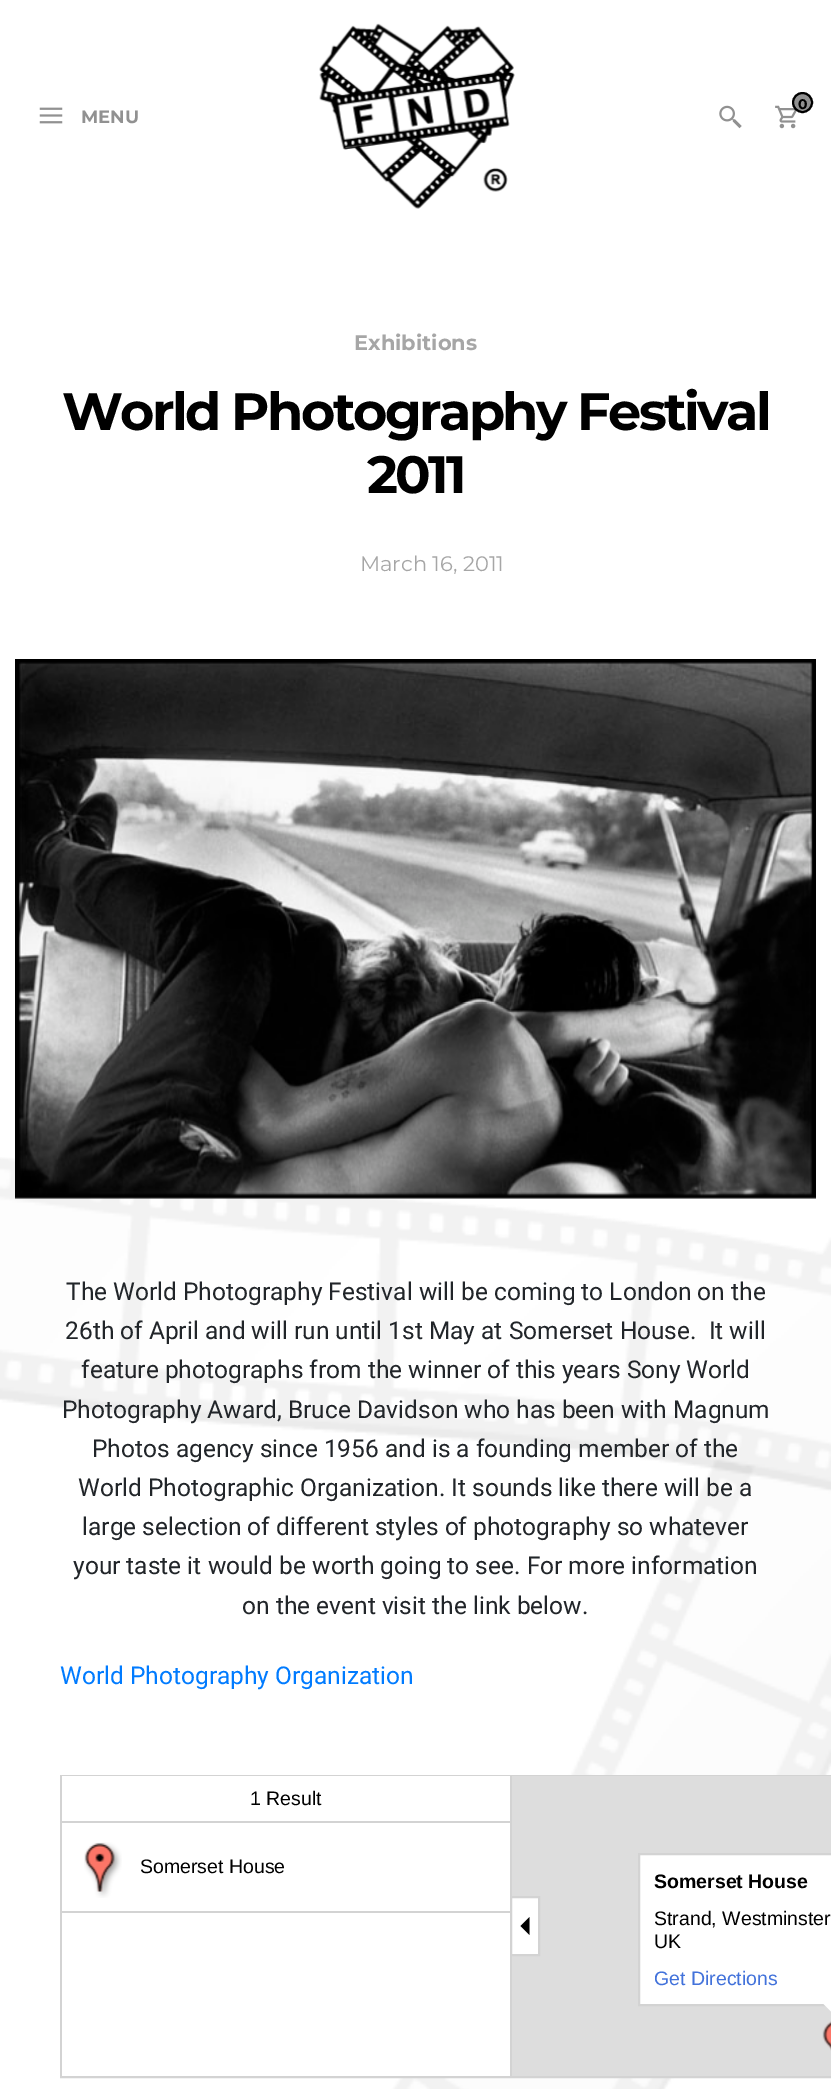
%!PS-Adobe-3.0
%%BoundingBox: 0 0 831 2089
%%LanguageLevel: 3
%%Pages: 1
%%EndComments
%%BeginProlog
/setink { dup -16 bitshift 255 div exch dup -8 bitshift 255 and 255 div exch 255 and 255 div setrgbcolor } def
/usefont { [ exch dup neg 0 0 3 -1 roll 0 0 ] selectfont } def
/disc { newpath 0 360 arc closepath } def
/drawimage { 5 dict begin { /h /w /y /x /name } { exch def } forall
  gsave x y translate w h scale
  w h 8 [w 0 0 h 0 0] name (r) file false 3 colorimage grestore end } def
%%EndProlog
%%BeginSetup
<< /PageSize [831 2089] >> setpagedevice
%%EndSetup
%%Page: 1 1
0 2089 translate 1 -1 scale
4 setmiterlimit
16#FFFFFF setink
0 0 831 2089 rectfill
(img1.raw) 319 23 196 186 drawimage
(img2.raw) 719 105 23 24 drawimage
(img3.raw) 775 105 22 24 drawimage
16#919191 setink
802.5 102.5 9.5 disc gsave fill grestore
16#000000 setink
2 setlinewidth
stroke
/Montserrat-Bold 14 usefont
798 109 moveto (0) show
(img4.raw) 39 107 24 17 drawimage
/Montserrat-Bold 18 usefont
16#919191 setink
81 123 moveto (MENU) show
(img5.raw) 0 1157 831 932 drawimage
/Montserrat-Bold 21 usefont
16#A6A6A6 setink
354 350 moveto (Exhibitions) show
/Montserrat-Bold 52.5 usefont
16#000000 setink
62 430 moveto -2.6 0 (World Photography Festival) ashow
367 493 moveto -2.6 0 (2011) ashow
/Montserrat-Regular 21 usefont
16#A6A6A6 setink
360 571 moveto (March 16, 2011) show
(img6.raw) 15 659 801 540 drawimage
/Roboto-Regular 24.5 usefont
16#212529 setink
[
    [(The World Photography Festival will be coming to London on the) 66 1300]
    [(26th of April and will run until 1st May at Somerset House.  It will) 65 1339]
    [(feature photographs from the winner of this years Sony World) 81 1378]
    [(Photography Award, Bruce Davidson who has been with Magnum) 62 1418]
    [(Photos agency since 1956 and is a founding member of the) 92 1457]
    [(World Photographic Organization. It sounds like there will be a) 78 1496]
    [(large selection of different styles of photography so whatever) 82 1535]
    [(your taste it would be worth going to see. For more information) 73 1574]
    [(on the event visit the link below.) 242 1614]
] { aload pop moveto show } forall
16#007BFF setink
60 1684 moveto (World Photography Organization) show
16#D3D3D3 setink
61 1776 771 301 rectstroke
[
    [62 1776 448 300 16#FFFFFF]
    [510 1776 2 300 16#D3D3D3]
    [62 1821 448 2 16#D3D3D3]
] { aload pop setink rectfill } forall
/LiberationSans-Regular 19.5 usefont
16#000000 setink
250 1805 moveto (1 Result) show
16#D3D3D3 setink
62 1911 448 2 rectfill
(img7.raw) 84 1842 38 56 drawimage
16#000000 setink
140 1873 moveto (Somerset House) show
16#DDDDDD setink
512 1776 319 300 rectfill
16#FFFFFF setink
511 1897 moveto 539 1897 lineto 539 1955 lineto 511 1955 lineto closepath gsave fill grestore
16#D3D3D3 setink
stroke
16#000000 setink
529.5 1917 moveto 529.5 1935 lineto 520.5 1926 lineto closepath fill
16#FFFFFF setink
639 1854 moveto 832 1854 lineto 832 2005 lineto 639 2005 lineto closepath gsave fill grestore
16#D3D3D3 setink
stroke
/LiberationSans-Bold 19.5 usefont
16#000000 setink
654 1888 moveto (Somerset House) show
/LiberationSans-Regular 19.5 usefont
654 1925 moveto (Strand, Westminster) show
654 1948 moveto (UK) show
16#4272DB setink
654 1985 moveto (Get Directions) show
16#FFFFFF setink
823.5 2004 moveto 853.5 2004 lineto 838.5 2019 lineto closepath fill
(img8.raw) 822 2021 9 30 drawimage
showpage
%%EOF
